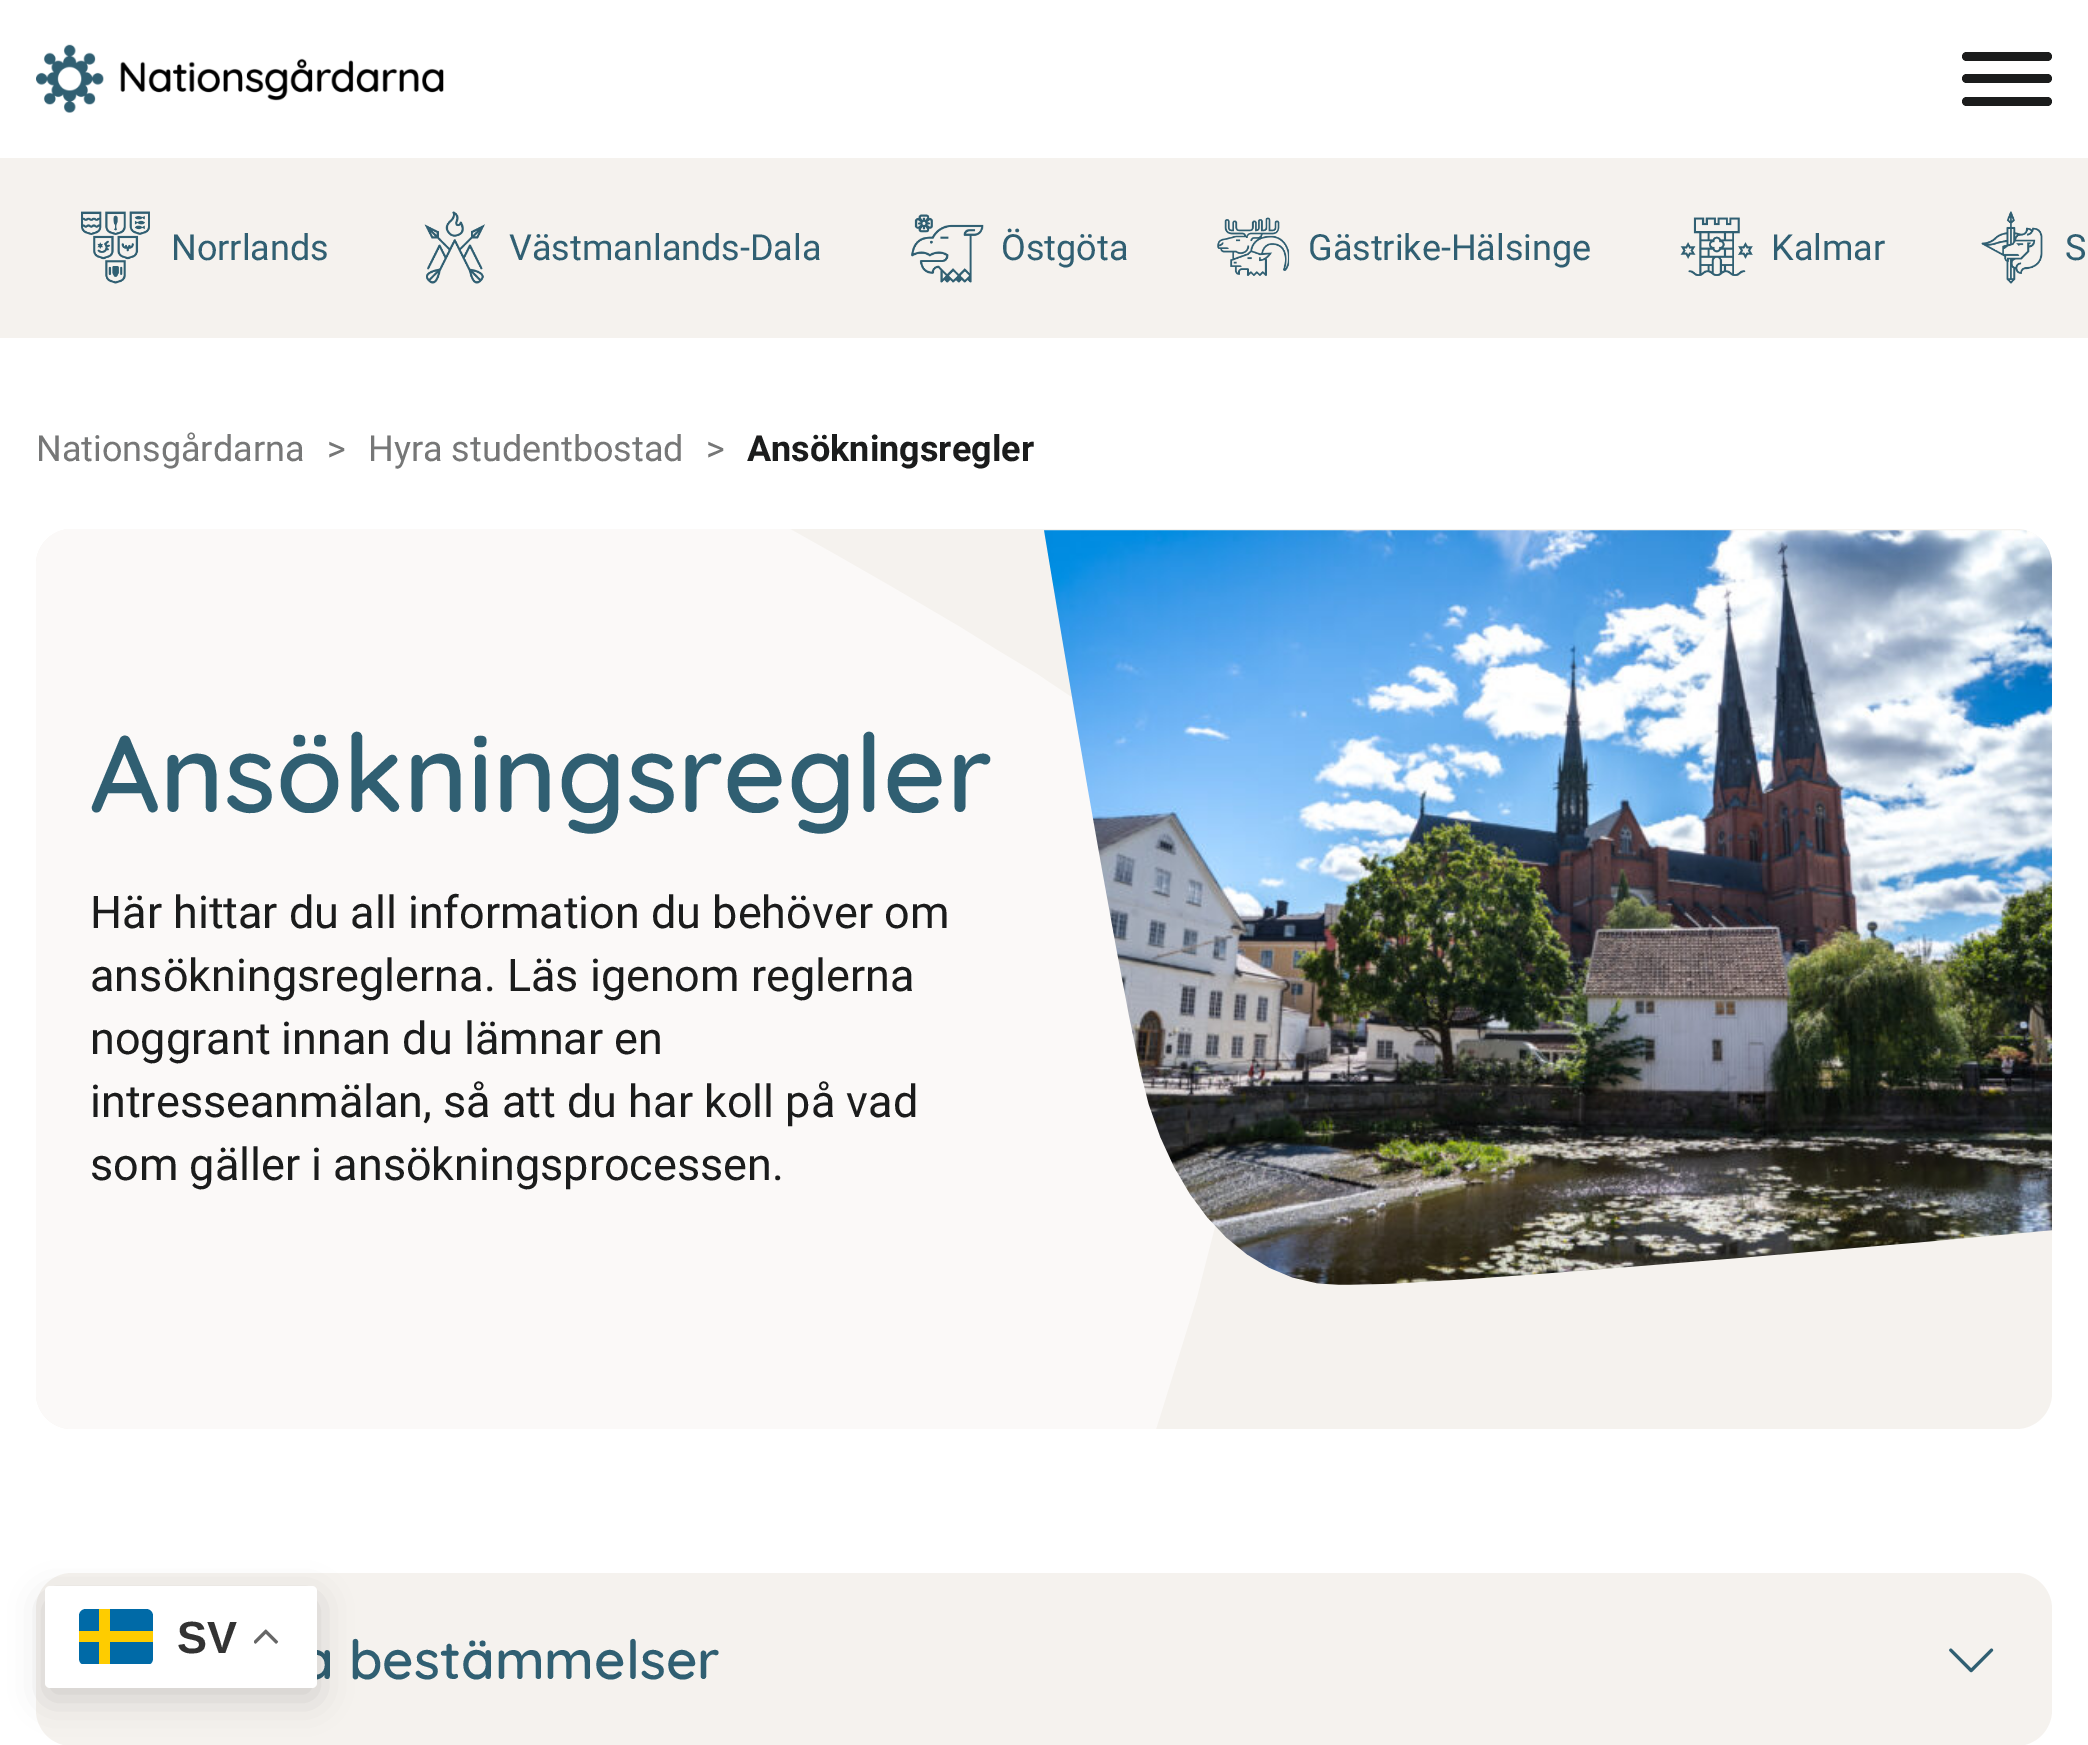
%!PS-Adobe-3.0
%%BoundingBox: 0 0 2088 1745
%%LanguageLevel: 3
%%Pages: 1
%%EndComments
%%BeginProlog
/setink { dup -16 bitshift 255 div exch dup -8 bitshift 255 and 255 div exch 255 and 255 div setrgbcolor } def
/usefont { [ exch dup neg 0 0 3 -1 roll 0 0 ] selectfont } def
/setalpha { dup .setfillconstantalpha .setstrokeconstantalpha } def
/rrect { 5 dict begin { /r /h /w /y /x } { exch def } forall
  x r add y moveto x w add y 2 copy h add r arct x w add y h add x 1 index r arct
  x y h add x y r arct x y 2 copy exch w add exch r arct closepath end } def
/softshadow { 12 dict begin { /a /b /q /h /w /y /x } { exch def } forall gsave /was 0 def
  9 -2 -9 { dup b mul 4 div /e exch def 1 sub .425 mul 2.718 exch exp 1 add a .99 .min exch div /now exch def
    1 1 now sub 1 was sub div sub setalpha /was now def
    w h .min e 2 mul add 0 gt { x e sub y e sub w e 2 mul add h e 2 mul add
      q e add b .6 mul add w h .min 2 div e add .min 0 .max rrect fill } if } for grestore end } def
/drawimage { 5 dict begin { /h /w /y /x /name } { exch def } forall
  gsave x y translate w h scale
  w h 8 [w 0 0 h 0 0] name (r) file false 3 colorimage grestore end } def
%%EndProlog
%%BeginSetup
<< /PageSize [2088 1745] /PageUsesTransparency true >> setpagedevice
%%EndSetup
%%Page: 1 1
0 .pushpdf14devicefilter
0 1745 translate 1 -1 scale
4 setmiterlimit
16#FFFFFF setink
0 0 2088 1745 rectfill
(img1.raw) 36 44 408 69 drawimage
16#1B1C1C setink
1962 52 90 9 4.5 rrect fill
1962 74 90 9 4.5 rrect fill
1962 97 90 9 4.5 rrect fill
16#F5F2EE setink
0 158 2088 180 rectfill
(img2.raw) 81 211 69 73 drawimage
/Roboto-Regular 36 usefont
16#305F72 setink
171 260 moveto (Norrlands) show
(img3.raw) 424 211 61 73 drawimage
509 260 moveto (Västmanlands-Dala) show
(img4.raw) 911 214 73 69 drawimage
1001 260 moveto (Östgöta) show
(img5.raw) 1217 217 73 59 drawimage
1308 260 moveto (Gästrike-Hälsinge) show
(img6.raw) 1680 217 73 59 drawimage
1771 260 moveto (Kalmar) show
(img7.raw) 1981 211 62 73 drawimage
2065 260 moveto (S) show
16#767777 setink
[
    [(Nationsgårdarna) 36 461]
    [(>) 327 461]
    [(Hyra studentbostad) 368 461]
    [(>) 706 461]
] { aload pop moveto show } forall
/Roboto-Bold 36 usefont
16#1B1C1C setink
747 461 moveto (Ansökningsregler) show
16#F5F2EE setink
36 529 2016 900 36 rrect fill
16#FBF9F8 setink
1156 1429 moveto 1162 1410 lineto 1197 1297 lineto 1224 1192 lineto 1241 1103 lineto 1244 1036 lineto 1238 976 lineto 1228 924 lineto 1216 879 lineto 1200 840 lineto 1181 805 lineto 1159 775 lineto 1134 748 lineto 1105 722 lineto 1073 698 lineto 1037 674 lineto 997 650 lineto 960 627 lineto 892 587 lineto 838 556 lineto 790 529 lineto 68 529 lineto 50 531 36 546 36 565 curveto 36 1393 lineto 36 1413 52 1429 72 1429 curveto closepath fill
(img8.raw) 1044 530 1008 755 drawimage
/Quicksand-SemiBold 108.75 usefont
16#305F72 setink
90 812 moveto (Ansökningsregler) show
/Roboto-Regular 45 usefont
16#1B1C1C setink
[
    [(Här hittar du all information du behöver om) 90 928]
    [(ansökningsreglerna. Läs igenom reglerna) 90 991]
    [(noggrant innan du lämnar en) 90 1054]
    [(intresseanmälan, så att du har koll på vad) 90 1117]
    [(som gäller i ansökningsprocessen.) 90 1180]
] { aload pop moveto show } forall
16#F5F2EE setink
36 1573 2016 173 36 rrect fill
/Quicksand-SemiBold 54.25 usefont
16#305F72 setink
300 1679 moveto (a bestämmelser) show
(img9.raw) 1949 1648 45 25 drawimage
16#000000 setink
45 1598 272 101 5 17 0.15 softshadow
16#FFFFFF setink
45 1586 272 102 5 rrect fill
16#006AA7 setink
86 1609 moveto 99 1609 lineto 99 1631 lineto 79 1631 lineto 79 1616 lineto 79 1612 82 1609 86 1609 curveto closepath 82 1664 moveto 80 1663 79 1661 79 1658 curveto 79 1642 lineto 99 1642 lineto 99 1664 lineto closepath eofill
[
    [79 1631 20 11 16#FECC00]
    [99 1609 11 55 16#FECC00]
    [110 1631 43 11 16#FECC00]
] { aload pop setink rectfill } forall
16#006AA7 setink
110 1609 moveto 146 1609 lineto 150 1609 153 1612 153 1616 curveto 153 1631 lineto 110 1631 lineto closepath 110 1642 moveto 110 1664 lineto 150 1664 lineto 152 1663 153 1661 153 1658 curveto 153 1642 lineto closepath eofill
/LiberationSans-Bold 45 usefont
16#333333 setink
177 1653 moveto (SV) show
(img10.raw) 254 1629 25 15 drawimage
.poppdf14devicefilter showpage
%%EOF
